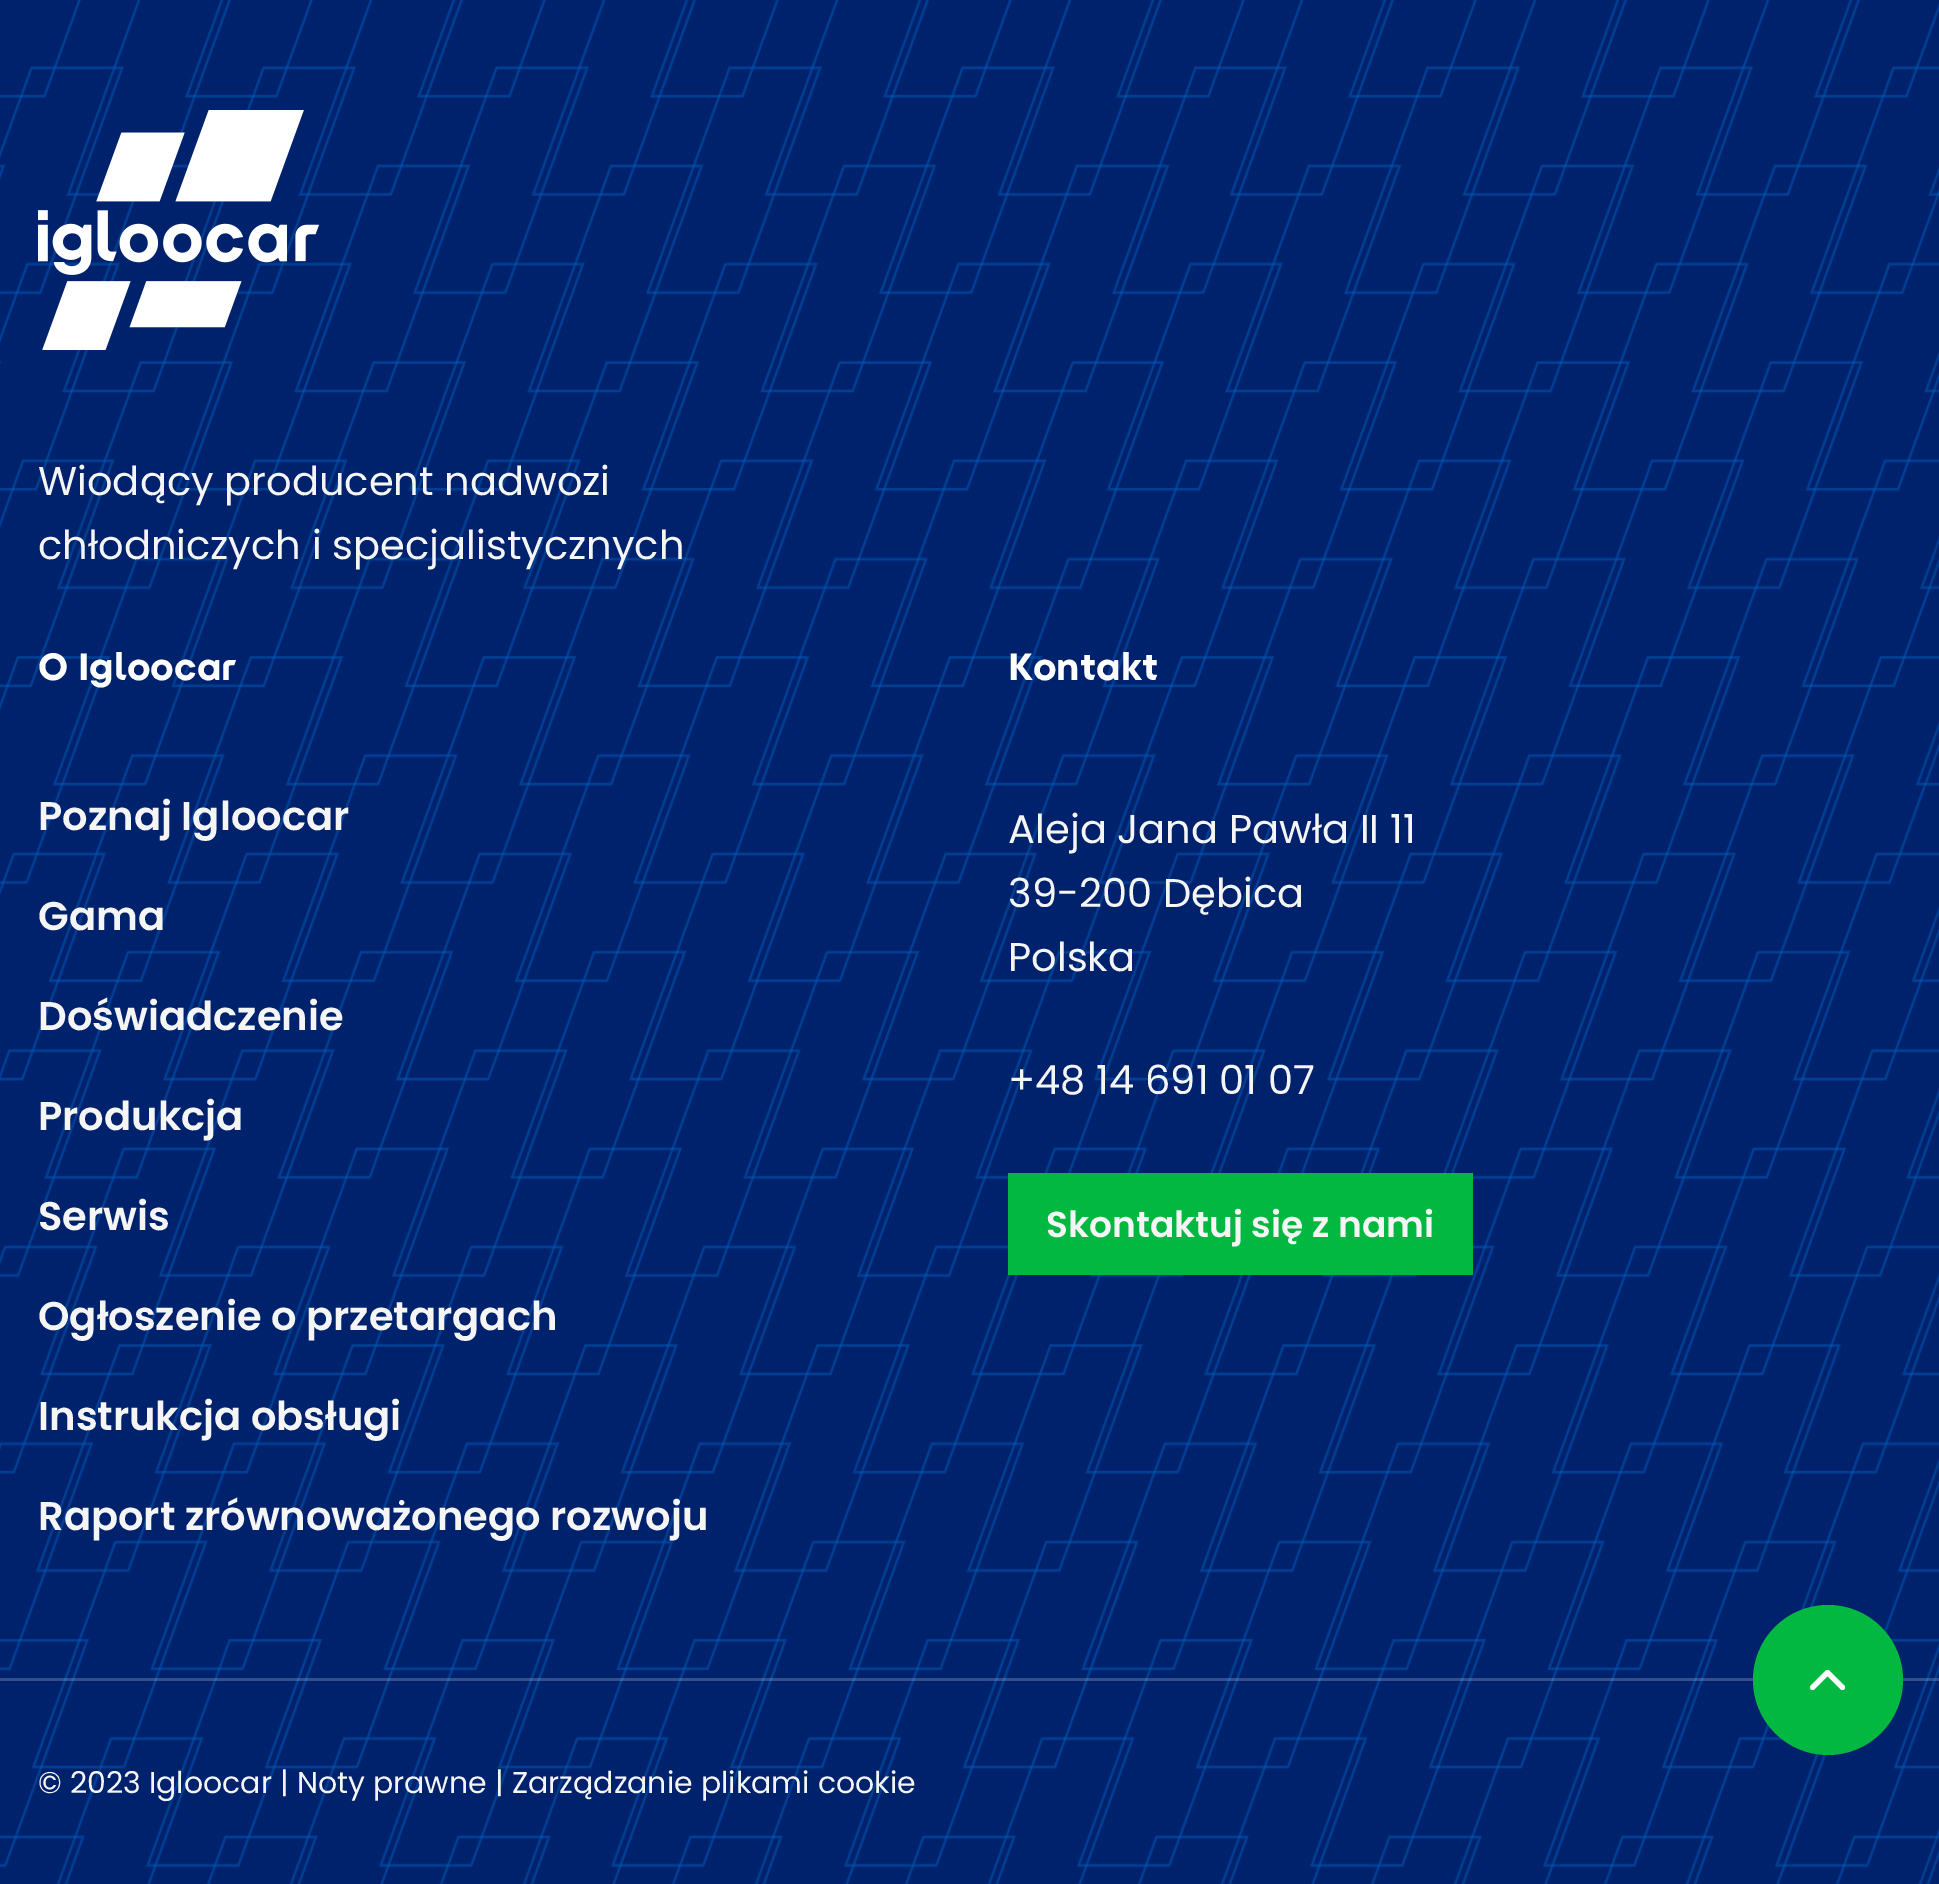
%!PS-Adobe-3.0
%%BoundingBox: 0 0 1939 1884
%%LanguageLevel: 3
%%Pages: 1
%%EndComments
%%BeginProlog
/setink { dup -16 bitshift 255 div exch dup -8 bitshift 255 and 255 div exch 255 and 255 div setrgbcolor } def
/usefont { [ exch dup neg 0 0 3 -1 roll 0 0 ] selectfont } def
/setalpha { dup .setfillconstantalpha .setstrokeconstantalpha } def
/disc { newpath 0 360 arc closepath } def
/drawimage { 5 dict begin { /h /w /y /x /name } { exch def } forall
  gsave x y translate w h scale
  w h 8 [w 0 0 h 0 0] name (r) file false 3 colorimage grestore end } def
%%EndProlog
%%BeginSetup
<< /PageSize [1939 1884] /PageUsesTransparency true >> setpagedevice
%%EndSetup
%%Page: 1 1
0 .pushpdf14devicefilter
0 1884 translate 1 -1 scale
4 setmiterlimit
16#FFFFFF setink
0 0 1939 1884 rectfill
16#00226D setink
-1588 -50 moveto 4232 -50 lineto 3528 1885 lineto -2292 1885 lineto closepath fill
(img1.raw) 0 0 1939 1884 drawimage
(img2.raw) 38 110 281 240 drawimage
/Poppins-Regular 40 usefont
16#F5F5F5 setink
38 495 moveto (Wiodący producent nadwozi) show
38 559 moveto (chłodniczych i specjalistycznych) show
/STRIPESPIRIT-Bold 40 usefont
16#FEFEFE setink
38 680 moveto (O Igloocar) show
/Poppins-SemiBold 40 usefont
16#F5F5F5 setink
[
    [(Poznaj Igloocar) 38 830]
    [(Gama) 38 930]
    [(Doświadczenie) 38 1030]
    [(Produkcja) 38 1130]
    [(Serwis) 38 1230]
    [(Ogłoszenie o przetargach) 38 1330]
    [(Instrukcja obsługi) 38 1430]
    [(Raport zrównoważonego rozwoju) 38 1530]
] { aload pop moveto show } forall
/STRIPESPIRIT-Bold 40 usefont
16#FEFEFE setink
1008 680 moveto (Kontakt) show
/Poppins-Regular 40 usefont
16#F5F5F5 setink
[
    [(Aleja Jana Pawła II 11) 1008 843]
    [(39-200 Dębica) 1008 907]
    [(Polska) 1008 971]
    [(+48 14 691 01 07) 1008 1094]
] { aload pop moveto show } forall
16#02B840 setink
1008 1173 465 102 rectfill
/Poppins-SemiBold 36 usefont
16#F5F5F5 setink
1046 1237 moveto (Skontaktuj się z nami) show
0.2 setalpha
16#FEFEFE setink
0 1678 1939 3 rectfill
1 setalpha
16#02B840 setink
1828 1680 75 disc fill
16#FEFEFE setink
5 setlinewidth
1 setlinecap
1 setlinejoin
1842.5 1687.5 moveto 1827.5 1672.5 lineto 1812.5 1687.5 lineto stroke
/Poppins-Regular 30 usefont
16#F5F5F5 setink
38 1793 moveto (© 2023 Igloocar | Noty prawne | Zarządzanie plikami cookie) show
.poppdf14devicefilter showpage
%%EOF
